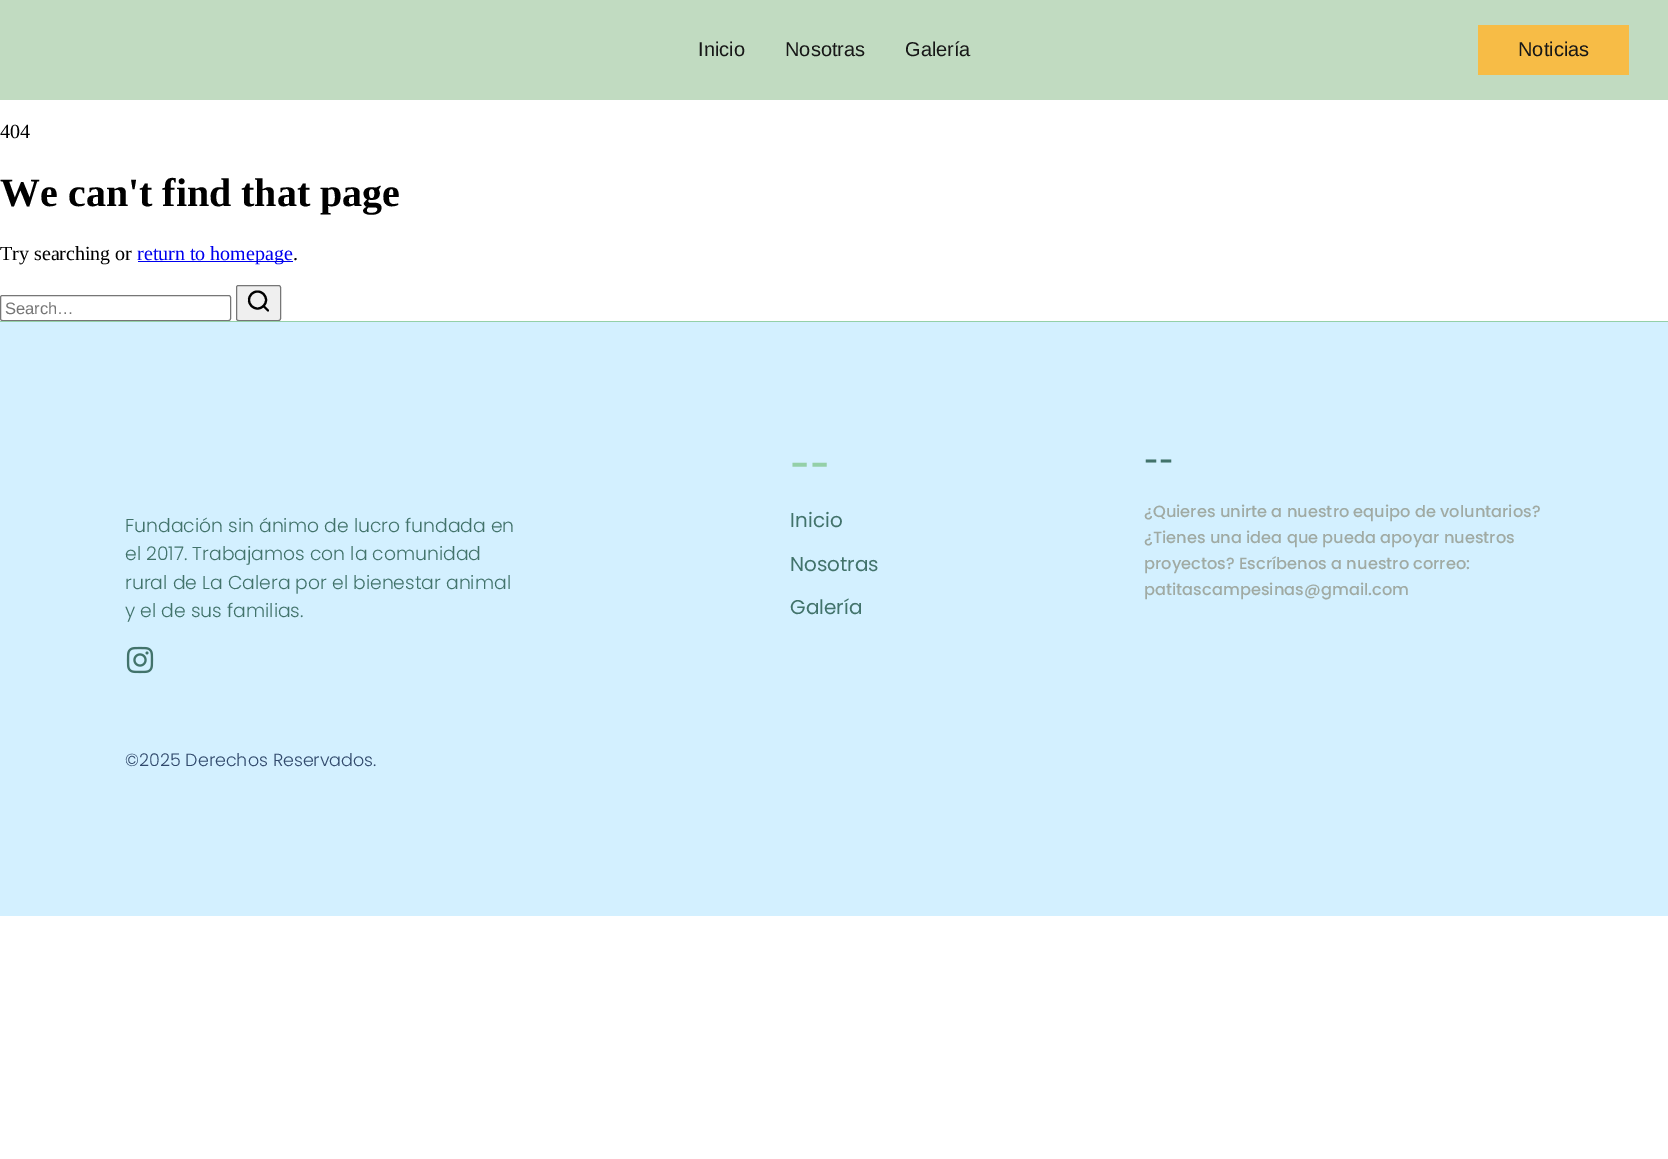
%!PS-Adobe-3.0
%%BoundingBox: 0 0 1668 1159
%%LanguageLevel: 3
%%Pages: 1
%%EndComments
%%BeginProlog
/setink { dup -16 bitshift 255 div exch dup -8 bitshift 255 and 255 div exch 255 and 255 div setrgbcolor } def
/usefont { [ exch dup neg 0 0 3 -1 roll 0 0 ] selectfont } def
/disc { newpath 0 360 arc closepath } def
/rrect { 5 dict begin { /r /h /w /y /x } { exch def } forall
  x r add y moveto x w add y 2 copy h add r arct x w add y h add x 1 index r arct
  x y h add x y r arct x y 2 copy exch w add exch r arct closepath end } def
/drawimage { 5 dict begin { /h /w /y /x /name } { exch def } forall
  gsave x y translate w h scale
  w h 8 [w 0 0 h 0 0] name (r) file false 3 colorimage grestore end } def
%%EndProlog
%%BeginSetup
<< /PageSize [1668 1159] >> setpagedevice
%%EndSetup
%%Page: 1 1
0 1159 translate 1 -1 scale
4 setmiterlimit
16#FFFFFF setink
0 0 1668 1159 rectfill
16#C1DBC1 setink
0 0 1668 100 rectfill
/LiberationSans-Regular 20 usefont
16#171717 setink
[
    [(Inicio) 698 56]
    [(Nosotras) 785 56]
    [(Galería) 905 56]
] { aload pop moveto show } forall
16#F7BC46 setink
1478 25 151 50 rectfill
16#171717 setink
1518 56 moveto (Noticias) show
/LiberationSerif-Regular 20 usefont
16#000000 setink
0 138 moveto (404) show
/LiberationSerif-Bold 40 usefont
0 206 moveto (We can't find that page) show
/LiberationSerif-Regular 20 usefont
0 260 moveto (Try searching or) show
16#0000EE setink
138 261 155 1 rectfill
137 260 moveto (return to homepage) show
16#000000 setink
293 260 moveto (.) show
16#767676 setink
0.5 295.5 230 25 2 rrect stroke
/LiberationSans-Regular 16.5 usefont
16#757575 setink
5 314 moveto (Search…) show
16#EFEFEF setink
236.5 285.5 44 35 2 rrect gsave fill grestore
16#767676 setink
stroke
16#000000 setink
2.1 setlinewidth
257.5 300 8.5 disc stroke
1 setlinecap
1 setlinejoin
268 310.5 moveto 263.5 306 lineto stroke
16#D3F0FF setink
0 322 1668 594 rectfill
16#94D0A8 setink
0 321 1668 1 rectfill
/Poppins-Light 18.75 usefont
16#42736B setink
[
    [(Fundación sin ánimo de lucro fundada en) 125 532]
    [(el 2017. Trabajamos con la comunidad) 125 560]
    [(rural de La Calera por el bienestar animal) 125 589]
    [(y el de sus familias.) 125 617]
] { aload pop moveto show } forall
(img1.raw) 126 646 28 28 drawimage
/Poppins-SemiBold 34 usefont
16#94D0A8 setink
790 477 moveto (--) show
/Poppins-Regular 20 usefont
16#42736B setink
[
    [(Inicio) 790 527]
    [(Nosotras) 790 571]
    [(Galería) 790 614]
] { aload pop moveto show } forall
/Poppins-SemiBold 25 usefont
1144 470 moveto (--) show
/Poppins-Medium 16.25 usefont
16#A0AAA3 setink
[
    [(¿Quieres unirte a nuestro equipo de voluntarios?) 1144 517]
    [(¿Tienes una idea que pueda apoyar nuestros) 1144 543]
    [(proyectos? Escríbenos a nuestro correo:) 1144 569]
    [(patitascampesinas@gmail.com) 1144 595]
] { aload pop moveto show } forall
/Poppins-Light 17.5 usefont
16#324A6D setink
125 766 moveto (©2025 Derechos Reservados.) show
showpage
%%EOF
